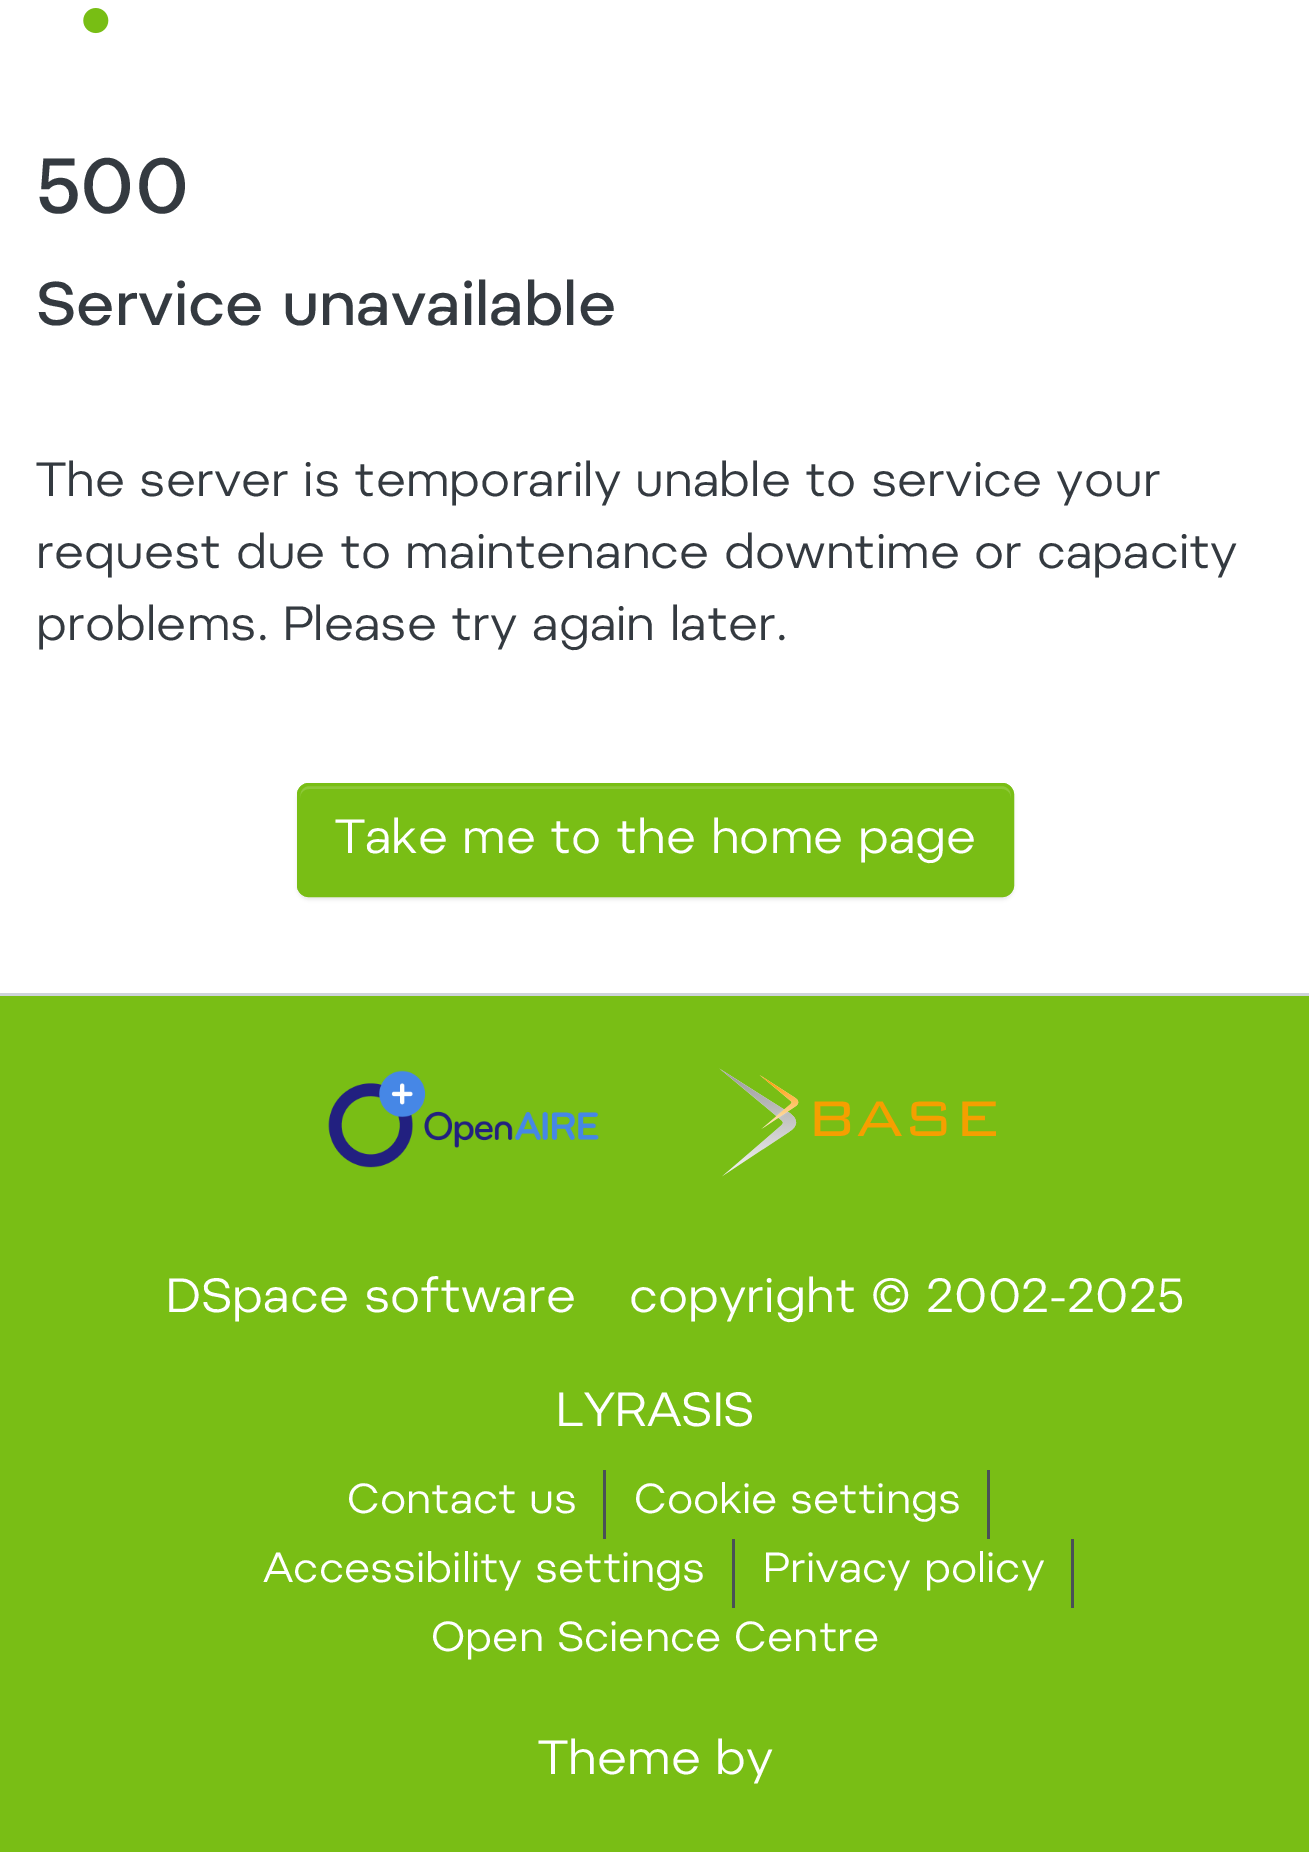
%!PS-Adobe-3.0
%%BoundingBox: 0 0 1309 1852
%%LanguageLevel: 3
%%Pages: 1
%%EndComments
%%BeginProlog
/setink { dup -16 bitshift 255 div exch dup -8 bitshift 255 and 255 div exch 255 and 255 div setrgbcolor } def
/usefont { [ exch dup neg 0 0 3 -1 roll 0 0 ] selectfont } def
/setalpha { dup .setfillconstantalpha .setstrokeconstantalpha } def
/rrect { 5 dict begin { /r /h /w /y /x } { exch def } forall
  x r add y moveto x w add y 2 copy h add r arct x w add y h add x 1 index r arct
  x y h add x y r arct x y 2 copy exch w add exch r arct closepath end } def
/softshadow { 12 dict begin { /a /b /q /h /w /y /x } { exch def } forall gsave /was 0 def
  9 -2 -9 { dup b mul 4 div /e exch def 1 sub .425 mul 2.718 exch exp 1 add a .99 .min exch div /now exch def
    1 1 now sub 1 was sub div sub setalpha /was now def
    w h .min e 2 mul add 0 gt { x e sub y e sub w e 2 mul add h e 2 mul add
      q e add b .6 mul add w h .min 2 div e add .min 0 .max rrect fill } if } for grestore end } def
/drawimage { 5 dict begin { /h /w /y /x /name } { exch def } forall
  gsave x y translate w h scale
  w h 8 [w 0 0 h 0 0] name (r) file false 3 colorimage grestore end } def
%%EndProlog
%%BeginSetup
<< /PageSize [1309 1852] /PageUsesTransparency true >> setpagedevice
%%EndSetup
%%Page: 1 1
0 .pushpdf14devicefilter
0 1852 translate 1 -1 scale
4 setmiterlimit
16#FFFFFF setink
0 0 1309 1852 rectfill
(img1.raw) 83 8 26 26 drawimage
/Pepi-Medium 78 usefont
16#343A40 setink
36 213 moveto (500) show
/Pepi-Medium 61.5 usefont
36 325 moveto (Service unavailable) show
/Pepi-Regular 48 usefont
[
    [(The server is temporarily unable to service your) 36 496]
    [(request due to maintenance downtime or capacity) 36 568]
    [(problems. Please try again later.) 36 640]
] { aload pop moveto show } forall
16#000000 setink
297 786 717 114 12 1.5 0.07 softshadow
16#79BE15 setink
297 783 717 114 12 rrect fill
16#8DC838 setink
309 789 moveto 1002 789 lineto 1007 789 1011 793 1011 798 curveto 1011 792 1009 786 1002 786 curveto 309 786 lineto 302 786 300 792 300 798 curveto 300 793 304 789 309 789 curveto closepath fill
16#79BE15 setink
3 setlinewidth
298.5 784.5 714 111 10.5 rrect stroke
16#FFFFFF setink
335 853 moveto (Take me to the home page) show
16#79BE15 setink
0 996 1309 856 rectfill
16#CED4DA setink
0 993 1309 3 rectfill
(img2.raw) 328 1070 271 98 drawimage
(img3.raw) 719 1068 277 109 drawimage
16#FFFFFF setink
[
    [(DSpace software) 166 1312]
    [(copyright © 2002-2025) 629 1312]
    [(LYRASIS) 556 1426]
] { aload pop moveto show } forall
/Pepi-Regular 42 usefont
347 1513 moveto (Contact us) show
16#495057 setink
603 1470 3 69 rectfill
16#FFFFFF setink
634 1513 moveto (Cookie settings) show
16#495057 setink
987 1470 3 69 rectfill
16#FFFFFF setink
263 1582 moveto (Accessibility settings) show
16#495057 setink
732 1539 3 69 rectfill
16#FFFFFF setink
763 1582 moveto (Privacy policy) show
16#495057 setink
1071 1539 3 69 rectfill
16#FFFFFF setink
431 1651 moveto (Open Science Centre) show
/Pepi-Regular 48 usefont
538 1774 moveto (Theme by) show
.poppdf14devicefilter showpage
%%EOF
